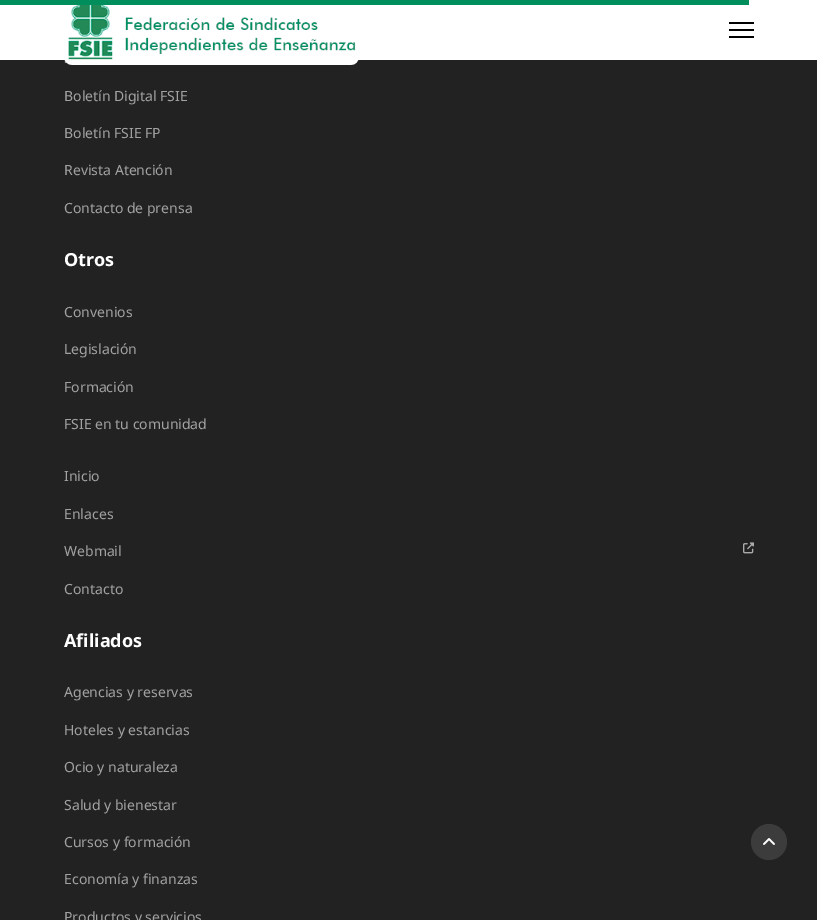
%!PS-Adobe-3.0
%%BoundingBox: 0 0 817 920
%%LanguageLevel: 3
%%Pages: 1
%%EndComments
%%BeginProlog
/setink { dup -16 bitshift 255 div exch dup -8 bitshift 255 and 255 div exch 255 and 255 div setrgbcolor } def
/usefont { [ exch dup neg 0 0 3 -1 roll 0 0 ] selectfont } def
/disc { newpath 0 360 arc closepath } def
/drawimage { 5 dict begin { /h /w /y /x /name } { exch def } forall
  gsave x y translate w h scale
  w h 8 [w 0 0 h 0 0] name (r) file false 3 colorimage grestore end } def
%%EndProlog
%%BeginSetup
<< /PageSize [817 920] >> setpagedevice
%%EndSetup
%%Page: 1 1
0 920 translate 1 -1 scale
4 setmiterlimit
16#222222 setink
0 0 817 920 rectfill
16#FFFFFF setink
0 0 817 60 rectfill
16#008E5C setink
0 0 749 5 rectfill
(img1.raw) 64 5 295 60 drawimage
[
    [729 22 25 2 16#000000]
    [729 29 25 2 16#000000]
    [729 36 25 2 16#000000]
] { aload pop setink rectfill } forall
/NotoSans-Regular 14 usefont
16#A2A2A2 setink
[
    [(Boletín Digital FSIE) 64 101]
    [(Boletín FSIE FP) 64 138]
    [(Revista Atención) 64 175]
    [(Contacto de prensa) 64 213]
] { aload pop moveto show } forall
/NotoSans-Bold 18 usefont
16#FFFFFF setink
64 266 moveto (Otros) show
/NotoSans-Regular 14 usefont
16#A2A2A2 setink
[
    [(Convenios) 64 317]
    [(Legislación) 64 354]
    [(Formación) 64 392]
    [(FSIE en tu comunidad) 64 429]
    [(Inicio) 64 481]
    [(Enlaces) 64 519]
    [(Webmail) 64 556]
] { aload pop moveto show } forall
(img2.raw) 743 542 11 12 drawimage
64 594 moveto (Contacto) show
/NotoSans-Bold 18 usefont
16#FFFFFF setink
64 647 moveto (Afiliados) show
/NotoSans-Regular 14 usefont
16#A2A2A2 setink
[
    [(Agencias y reservas) 64 697]
    [(Hoteles y estancias) 64 735]
    [(Ocio y naturaleza) 64 772]
    [(Salud y bienestar) 64 810]
    [(Cursos y formación) 64 847]
    [(Economía y finanzas) 64 884]
    [(Productos y servicios) 64 922]
] { aload pop moveto show } forall
16#3C3C3C setink
769 842 18 disc fill
(img3.raw) 763 838 12 7 drawimage
showpage
%%EOF
